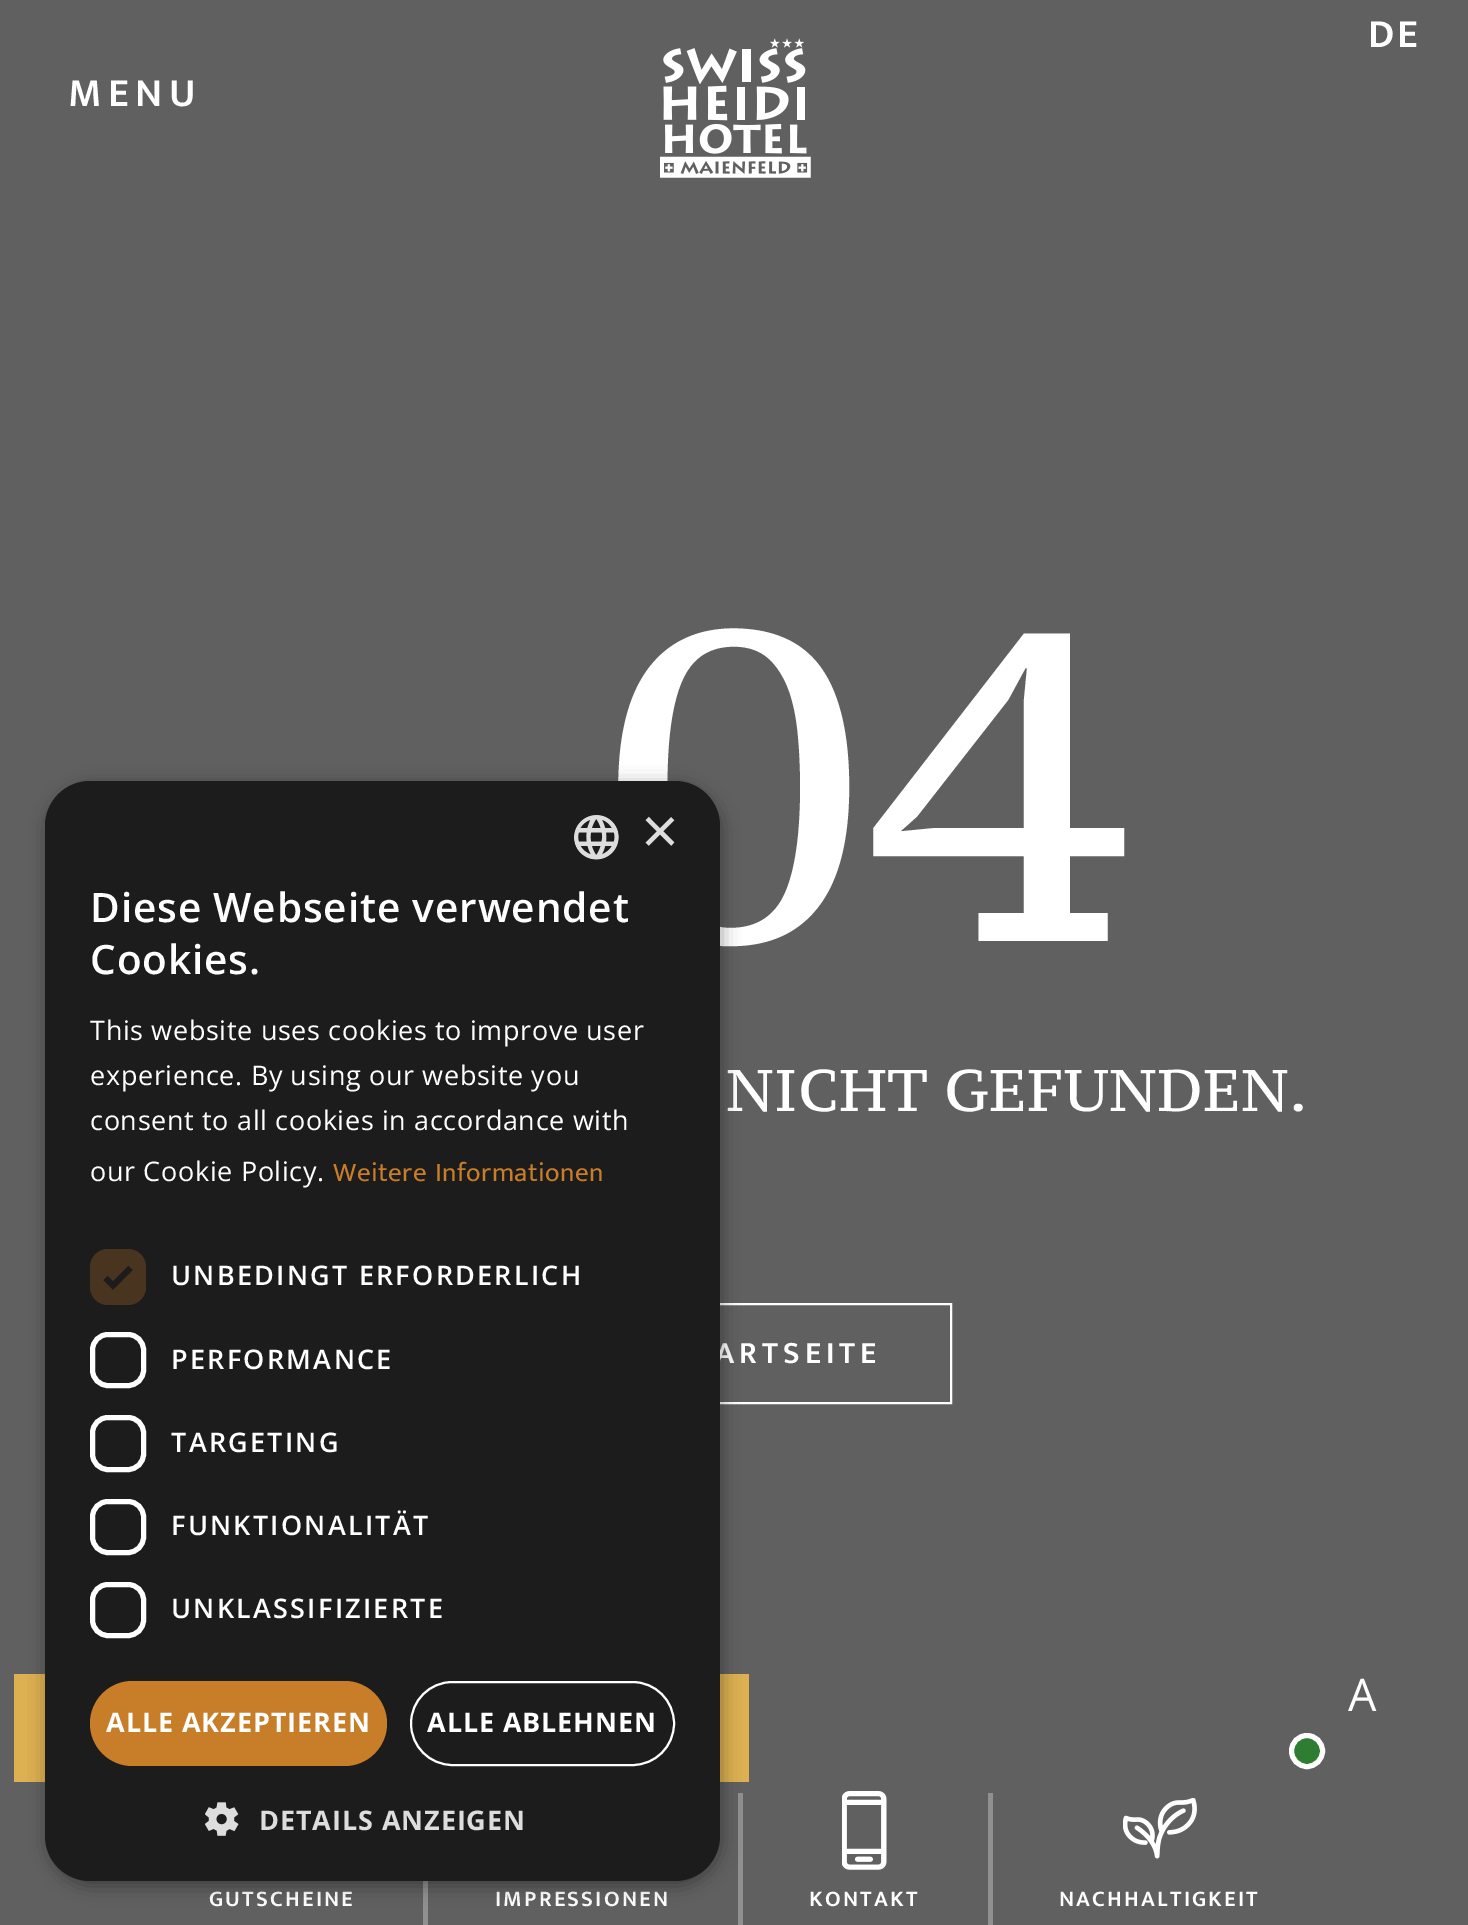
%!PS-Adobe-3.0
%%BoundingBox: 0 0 1468 1925
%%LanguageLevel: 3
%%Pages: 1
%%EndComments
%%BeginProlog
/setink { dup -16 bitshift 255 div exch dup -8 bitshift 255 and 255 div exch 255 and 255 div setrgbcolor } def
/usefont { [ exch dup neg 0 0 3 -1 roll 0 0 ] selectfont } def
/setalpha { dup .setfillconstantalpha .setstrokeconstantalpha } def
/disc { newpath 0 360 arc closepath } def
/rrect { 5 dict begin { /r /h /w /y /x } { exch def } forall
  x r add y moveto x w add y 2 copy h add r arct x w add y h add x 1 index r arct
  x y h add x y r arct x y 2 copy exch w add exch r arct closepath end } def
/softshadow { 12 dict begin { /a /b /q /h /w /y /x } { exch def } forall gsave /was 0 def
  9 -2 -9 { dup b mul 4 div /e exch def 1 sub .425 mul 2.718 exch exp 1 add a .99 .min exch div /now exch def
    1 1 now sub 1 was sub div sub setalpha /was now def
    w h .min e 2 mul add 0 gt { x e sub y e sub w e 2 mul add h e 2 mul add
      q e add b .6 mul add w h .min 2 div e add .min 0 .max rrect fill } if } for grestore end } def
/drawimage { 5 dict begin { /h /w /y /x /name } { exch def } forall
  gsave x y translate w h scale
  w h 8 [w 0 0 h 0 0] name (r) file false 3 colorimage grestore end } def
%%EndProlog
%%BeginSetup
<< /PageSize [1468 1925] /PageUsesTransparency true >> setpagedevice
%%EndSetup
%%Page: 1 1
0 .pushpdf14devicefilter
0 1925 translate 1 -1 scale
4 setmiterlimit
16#606060 setink
0 0 1468 1925 rectfill
/MuktaMalar-SemiBold 40.5 usefont
16#FFFFFF setink
1368 47 moveto 2.25 0 (DE) ashow
16#909090 setink
423 1881 5 44 rectfill
/MuktaMalar-SemiBold 22.5 usefont
16#FFFFFF setink
209 1906 moveto 2.25 0 (GUTSCHEINE) ashow
16#909090 setink
738 1793 5 132 rectfill
16#FFFFFF setink
495 1906 moveto 2.25 0 (IMPRESSIONEN) ashow
16#909090 setink
988 1793 5 132 rectfill
(img1.raw) 842 1791 45 79 drawimage
16#FFFFFF setink
809 1906 moveto 2.25 0 (KONTAKT) ashow
(img2.raw) 1123 1798 74 61 drawimage
1059 1906 moveto 2.25 0 (NACHHALTIGKEIT) ashow
16#DDB051 setink
14 1674 735 108 rectfill
/MuktaMalar-SemiBold 40.5 usefont
16#FFFFFF setink
68 106 moveto 6.5 0 (MENU) ashow
(img3.raw) 660 38 151 140 drawimage
/PTSerifCaption-Regular 441 usefont
602 941 moveto (04) show
/PTSerifCaption-Regular 58.75 usefont
726 1111 moveto (NICHT GEFUNDEN.) show
2 setlinewidth
519 1304 432 99 rectstroke
/MuktaMalar-SemiBold 31.5 usefont
715 1363 moveto 5 0 (ARTSEITE) ashow
16#000000 setink
47 785 675 1101 45 9 0.35 softshadow
16#1C1C1C setink
45 781 675 1100 45 rrect fill
(img4.raw) 574 815 45 45 drawimage
/LiberationSans-Regular 65 usefont
16#DDDDDD setink
641 853 moveto (×) show
/OpenSans-SemiBold 40.5 usefont
16#FFFFFF setink
90 922 moveto 0.9 0 (Diese Webseite verwendet) ashow
90 974 moveto 0.9 0 (Cookies.) ashow
/OpenSans-Regular 27 usefont
90 1040 moveto 0.65 0 (This website uses cookies to improve user) ashow
90 1085 moveto 0.65 0 (experience. By using our website you) ashow
90 1130 moveto 0.65 0 (consent to all cookies in accordance with) ashow
90 1181 moveto 0.65 0 (our Cookie Policy.) ashow
/MuktaMalar-Regular 27 usefont
16#C87D29 setink
333 1181 moveto 0.45 0 (Weitere Informationen) ashow
16#49351F setink
90 1249 56 56 18 rrect fill
16#1C1C1C setink
5.9 setlinewidth
105.5 1278 moveto 113 1285.5 lineto 130.5 1268 lineto stroke
/OpenSans-SemiBold 27 usefont
16#FFFFFF setink
171 1285 moveto 2.25 0 (UNBEDINGT ERFORDERLICH) ashow
5 setlinewidth
92.5 1334.5 51 51 15.5 rrect stroke
171 1369 moveto 2.25 0 (PERFORMANCE) ashow
92.5 1417.5 51 52 15.5 rrect stroke
171 1452 moveto 2.25 0 (TARGETING) ashow
92.5 1501.5 51 51 15.5 rrect stroke
171 1535 moveto 2.25 0 (FUNKTIONALITÄT) ashow
92.5 1584.5 51 51 15.5 rrect stroke
171 1618 moveto 2.25 0 (UNKLASSIFIZIERTE) ashow
16#C87D29 setink
90 1681 297 85 42.5 rrect fill
/OpenSans-Bold 27 usefont
16#FFFFFF setink
106 1732 moveto 0.9 0 (ALLE AKZEPTIEREN) ashow
2 setlinewidth
411 1682 263 83 41.5 rrect stroke
427 1732 moveto 0.9 0 (ALLE ABLEHNEN) ashow
(img5.raw) 205 1802 34 34 drawimage
16#DDDDDD setink
259 1830 moveto 0.9 0 (DETAILS ANZEIGEN) ashow
/OpenSans-Regular 45 usefont
16#FFFFFF setink
1348 1711 moveto (A) show
16#2E7D32 setink
1307 1751 15.5 disc gsave fill grestore
16#FFFFFF setink
5 setlinewidth
stroke
.poppdf14devicefilter showpage
%%EOF
